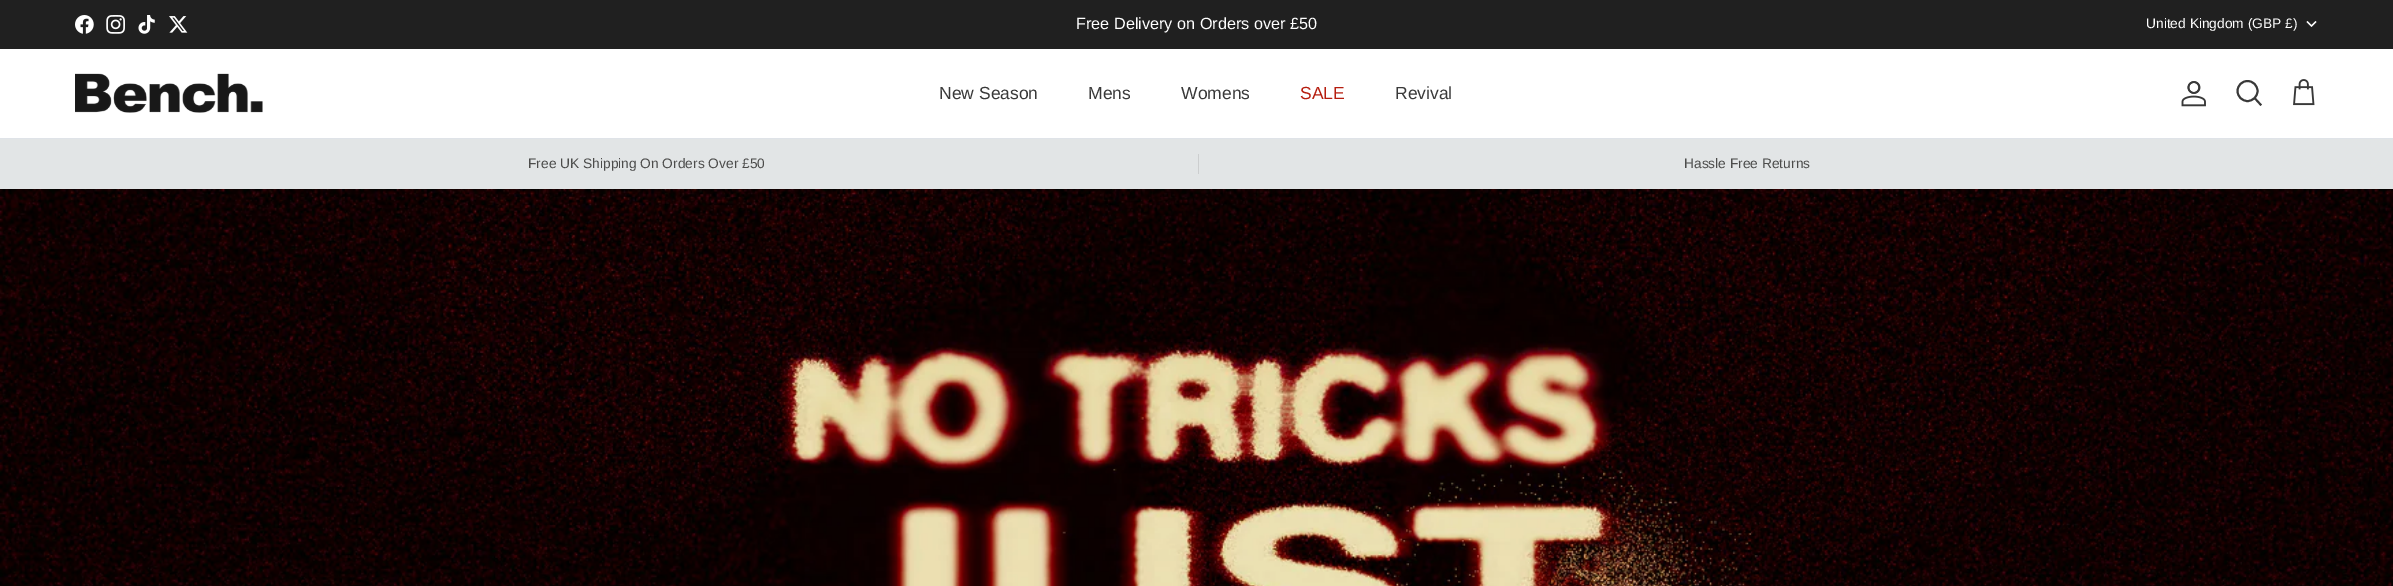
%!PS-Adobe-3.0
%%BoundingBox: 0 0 2393 586
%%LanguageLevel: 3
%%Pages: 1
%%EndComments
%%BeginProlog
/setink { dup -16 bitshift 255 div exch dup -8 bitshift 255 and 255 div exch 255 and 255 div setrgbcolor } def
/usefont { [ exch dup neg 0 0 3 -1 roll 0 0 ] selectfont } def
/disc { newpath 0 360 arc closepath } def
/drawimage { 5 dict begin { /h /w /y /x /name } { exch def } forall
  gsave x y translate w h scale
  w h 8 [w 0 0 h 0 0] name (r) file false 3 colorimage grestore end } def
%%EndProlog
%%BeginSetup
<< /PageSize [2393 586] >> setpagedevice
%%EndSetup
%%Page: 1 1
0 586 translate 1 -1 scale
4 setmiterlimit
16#FFFFFF setink
0 0 2393 586 rectfill
16#202020 setink
0 0 2393 49 rectfill
(img1.raw) 75 15 19 19 drawimage
(img2.raw) 106 15 19 19 drawimage
(img3.raw) 138 15 17 19 drawimage
(img4.raw) 169 16 19 17 drawimage
/Arimo-Regular 16.25 usefont
16#FFFFFF setink
1076 29 moveto (Free Delivery on Orders over £50) show
/Arimo-Regular 13.75 usefont
2146 28 moveto (United Kingdom \(GBP £\)) show
1.2 setlinewidth
2316 21.5 moveto 2311.5 26 lineto 2307 21.5 lineto stroke
16#DFE3E8 setink
0 138 2393 1 rectfill
(img5.raw) 75 73 188 40 drawimage
/Arimo-Regular 17.5 usefont
16#393939 setink
[
    [(New Season) 939 99]
    [(Mens) 1088 99]
    [(Womens) 1181 99]
] { aload pop moveto show } forall
16#B61D0F setink
1300 99 moveto (SALE) show
16#393939 setink
1395 99 moveto (Revival) show
(img6.raw) 2181 81 25 26 drawimage
1.9 setlinewidth
2247.5 91 10 disc stroke
2 setlinecap
2255 98.5 moveto 2260.5 104.5 lineto stroke
(img7.raw) 2293 79 22 27 drawimage
16#E2E5E6 setink
0 139 2393 50 rectfill
/Arimo-Regular 13.75 usefont
16#4C4C4B setink
528 168 moveto (Free UK Shipping On Orders Over £50) show
16#CCCECF setink
1198 154 1 20 rectfill
16#4C4C4B setink
1684 168 moveto (Hassle Free Returns) show
(img8.raw) 0 189 2393 397 drawimage
showpage
%%EOF
